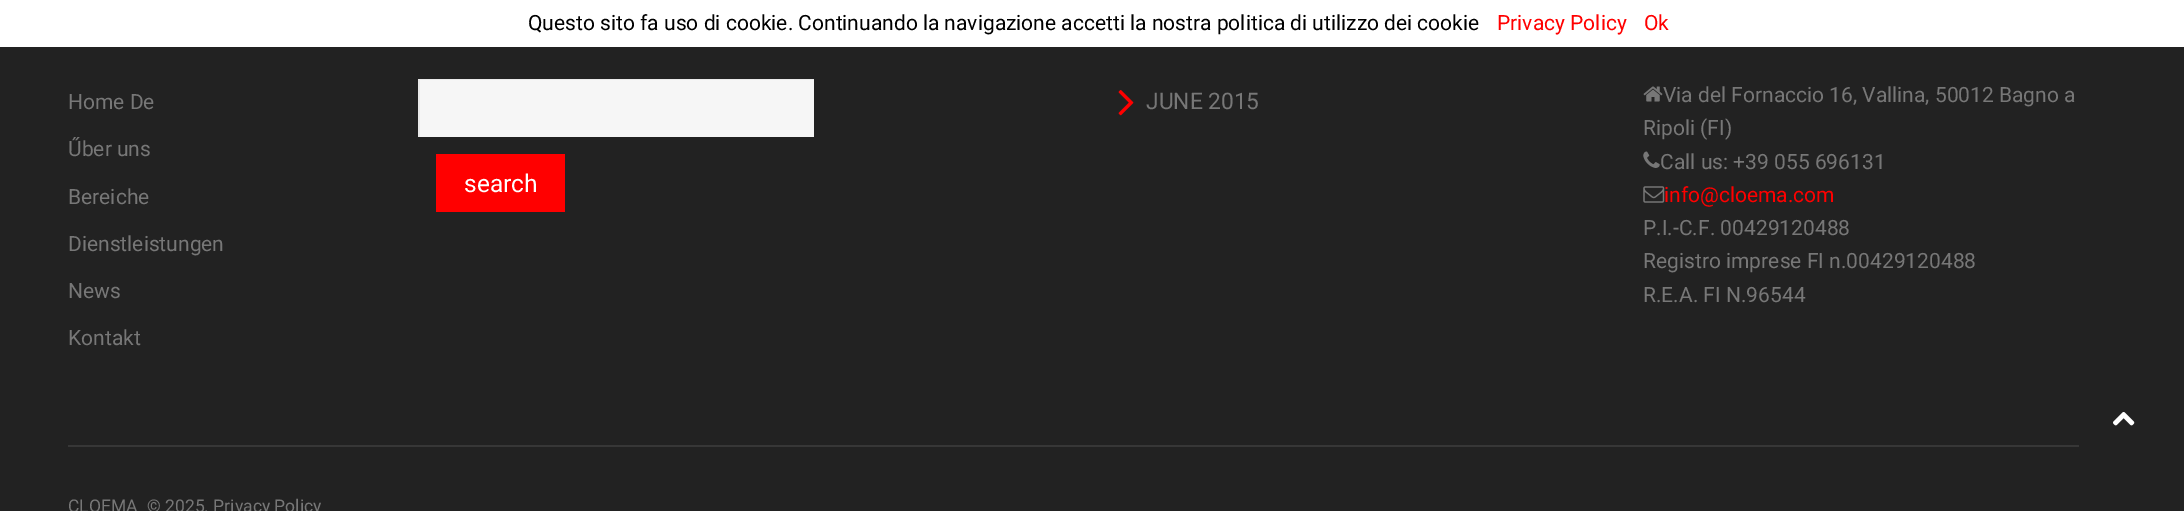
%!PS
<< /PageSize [2184 511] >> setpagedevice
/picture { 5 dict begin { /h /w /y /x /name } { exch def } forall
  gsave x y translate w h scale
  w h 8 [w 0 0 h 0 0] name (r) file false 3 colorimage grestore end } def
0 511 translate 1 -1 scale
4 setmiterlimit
0.133 setgray
0 0 2184 511 rectfill
1 setgray
0 0 2184 47 rectfill
/Roboto-Regular [21 0 0 -21 0 0] selectfont
0 setgray
528 30 moveto (Questo sito fa uso di cookie. Continuando la navigazione accetti la nostra politica di utilizzo dei cookie) show
1 0 0 setrgbcolor
1497 30 moveto (Privacy Policy) show
1644 30 moveto (Ok) show
0.467 setgray
68 109 moveto (Home De) show
68 156 moveto (Űber uns) show
68 204 moveto (Bereiche) show
68 251 moveto (Dienstleistungen) show
68 298 moveto (News) show
68 345 moveto (Kontakt) show
0.965 setgray
420 80 394 57 rectfill
gsave
418 79 396 58 rectclip
0.914 setgray
newpath 245 -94 moveto 987 -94 lineto 987 310 lineto 245 310 lineto closepath 420 80 moveto 816 80 lineto 816 138 lineto 420 138 lineto closepath eofill
grestore
1 0 0 setrgbcolor
436 154 129 58 rectfill
/Roboto-Regular [24.5 0 0 -24.5 0 0] selectfont
1 setgray
464 192 moveto (search) show
(img1.rgb) 1118 90 16 26 picture
/Roboto-Regular [22.75 0 0 -22.75 0 0] selectfont
0.467 setgray
1146 109 moveto (JUNE 2015) show
(img2.rgb) 1643 86 20 16 picture
/Roboto-Regular [21 0 0 -21 0 0] selectfont
1663 102 moveto (Via del Fornaccio 16, Vallina, 50012 Bagno a) show
1643 135 moveto (Ripoli \(FI\)) show
(img3.rgb) 1643 151 17 17 picture
1660 169 moveto (Call us: +39 055 696131) show
(img4.rgb) 1643 186 22 17 picture
1 0 0 setrgbcolor
1664 202 moveto (info@cloema.com) show
0.467 setgray
1643 235 moveto (P.I.-C.F. 00429120488) show
1643 268 moveto (Registro imprese FI n.00429120488) show
1643 302 moveto (R.E.A. FI N.96544) show
0.216 setgray
68 445 2011 2 rectfill
/Roboto-Regular [17.5 0 0 -17.5 0 0] selectfont
0.467 setgray
68 512 moveto (CLOEMA) show
147 512 moveto (© 2025. Privacy Policy) show
(img5.rgb) 2113 412 22 14 picture
showpage
